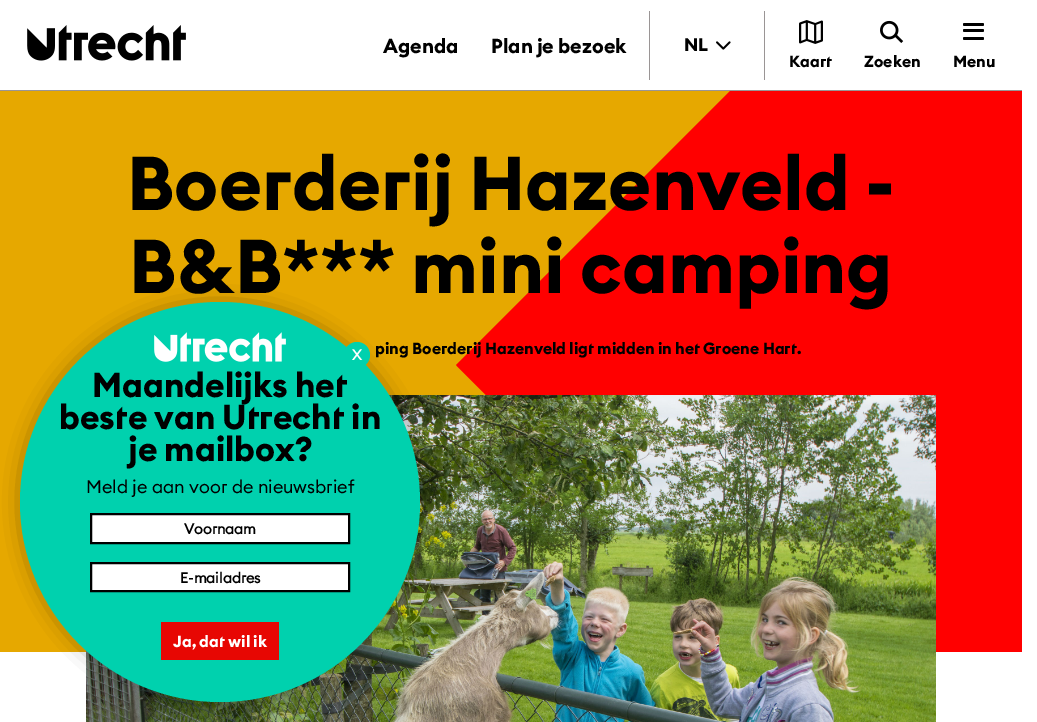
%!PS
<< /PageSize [1037 722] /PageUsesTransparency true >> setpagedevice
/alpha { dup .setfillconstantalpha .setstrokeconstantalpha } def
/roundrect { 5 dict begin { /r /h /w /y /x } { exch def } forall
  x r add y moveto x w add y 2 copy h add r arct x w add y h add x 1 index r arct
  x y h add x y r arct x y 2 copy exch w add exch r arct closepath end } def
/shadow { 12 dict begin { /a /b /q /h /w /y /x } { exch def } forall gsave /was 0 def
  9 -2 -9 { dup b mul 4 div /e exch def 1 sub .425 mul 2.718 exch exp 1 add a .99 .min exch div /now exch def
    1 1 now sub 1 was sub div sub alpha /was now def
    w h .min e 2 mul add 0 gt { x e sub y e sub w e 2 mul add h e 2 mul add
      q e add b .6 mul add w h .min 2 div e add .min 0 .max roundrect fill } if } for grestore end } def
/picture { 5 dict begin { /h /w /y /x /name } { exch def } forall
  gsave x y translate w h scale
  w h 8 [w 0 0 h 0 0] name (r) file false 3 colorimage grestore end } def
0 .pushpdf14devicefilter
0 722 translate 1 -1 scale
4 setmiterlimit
1 setgray
0 0 1037 722 rectfill
0.902 0.659 0 setrgbcolor
0 91 730 561 rectfill
gsave
0 0 1022 652 rectclip
1 0 0 setrgbcolor
newpath 456 365 moveto 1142 -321 lineto 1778 316 lineto 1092 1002 lineto closepath fill
grestore
1 setgray
731 0 291 90 rectfill
0.604 0.584 0.584 setrgbcolor
0 90 1022 1 rectfill
(img1.rgb) 27 25 159 36 picture
/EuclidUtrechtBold-Bold [20 0 0 -20 0 0] selectfont
0 setgray
383 53 moveto (Agenda) show
491 53 moveto (Plan je bezoek) show
0.604 0.584 0.584 setrgbcolor
649 11 1 69 rectfill
/EuclidUtrechtBold-Bold [18 0 0 -18 0 0] selectfont
0 setgray
684 51 moveto (NL) show
(img2.rgb) 716 41 15 9 picture
0.604 0.584 0.584 setrgbcolor
764 11 1 69 rectfill
(img3.rgb) 799 20 24 24 picture
/EuclidUtrechtBold-Bold [16 0 0 -16 0 0] selectfont
0 setgray
789 67 moveto (Kaart) show
(img4.rgb) 880 20 24 23 picture
864 67 moveto (Zoeken) show
963 23 21 3 1.5 roundrect fill
963 29 21 3 1.5 roundrect fill
963 37 21 3 1.5 roundrect fill
953 67 moveto (Menu) show
/EuclidUtrechtBold-Bold [75 0 0 -75 0 0] selectfont
127 210 moveto (Boerderij Hazenveld -) show
129 293 moveto (B&B*** mini camping) show
/EuclidUtrechtBold-Bold [16 0 0 -16 0 0] selectfont
375 354 moveto (ping Boerderij Hazenveld ligt midden in het Groene Hart.) show
(img5.rgb) 86 395 850 327 picture
30 312 380 380 190 12.5 0.75 shadow
0 0.82 0.682 setrgbcolor
newpath 220 502 200 0 360 arc closepath fill
(img6.rgb) 154 332 132 30 picture
newpath 357 355 13 0 360 arc closepath fill
/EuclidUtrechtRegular-Bold [14.5 0 0 -14.5 0 0] selectfont
1 setgray
352 360 moveto (X) show
/EuclidUtrechtBold-Bold [34 0 0 -34 0 0] selectfont
0 setgray
92 397 moveto (Maandelijks het) show
59 429 moveto (beste van Utrecht in) show
128 461 moveto (je mailbox?) show
/EuclidUtrechtRegular-Regular [18 0 0 -18 0 0] selectfont
86 493 moveto (Meld je aan voor de nieuwsbrief) show
1 setgray
newpath 91 514 moveto 349 514 lineto 349 543 lineto 91 543 lineto closepath gsave fill grestore
0 setgray
2 setlinewidth
stroke
/EuclidUtrechtRegular-Bold [14.5 0 0 -14.5 0 0] selectfont
184 534 moveto (Voornaam) show
1 setgray
newpath 91 563 moveto 349 563 lineto 349 591 lineto 91 591 lineto closepath gsave fill grestore
0 setgray
stroke
180 583 moveto (E-mailadres) show
0.906 0.027 0.012 setrgbcolor
161 622 118 38 rectfill
/EuclidUtrechtBold-Bold [16 0 0 -16 0 0] selectfont
1 setgray
173 647 moveto (Ja, dat wil ik) show
.poppdf14devicefilter showpage
